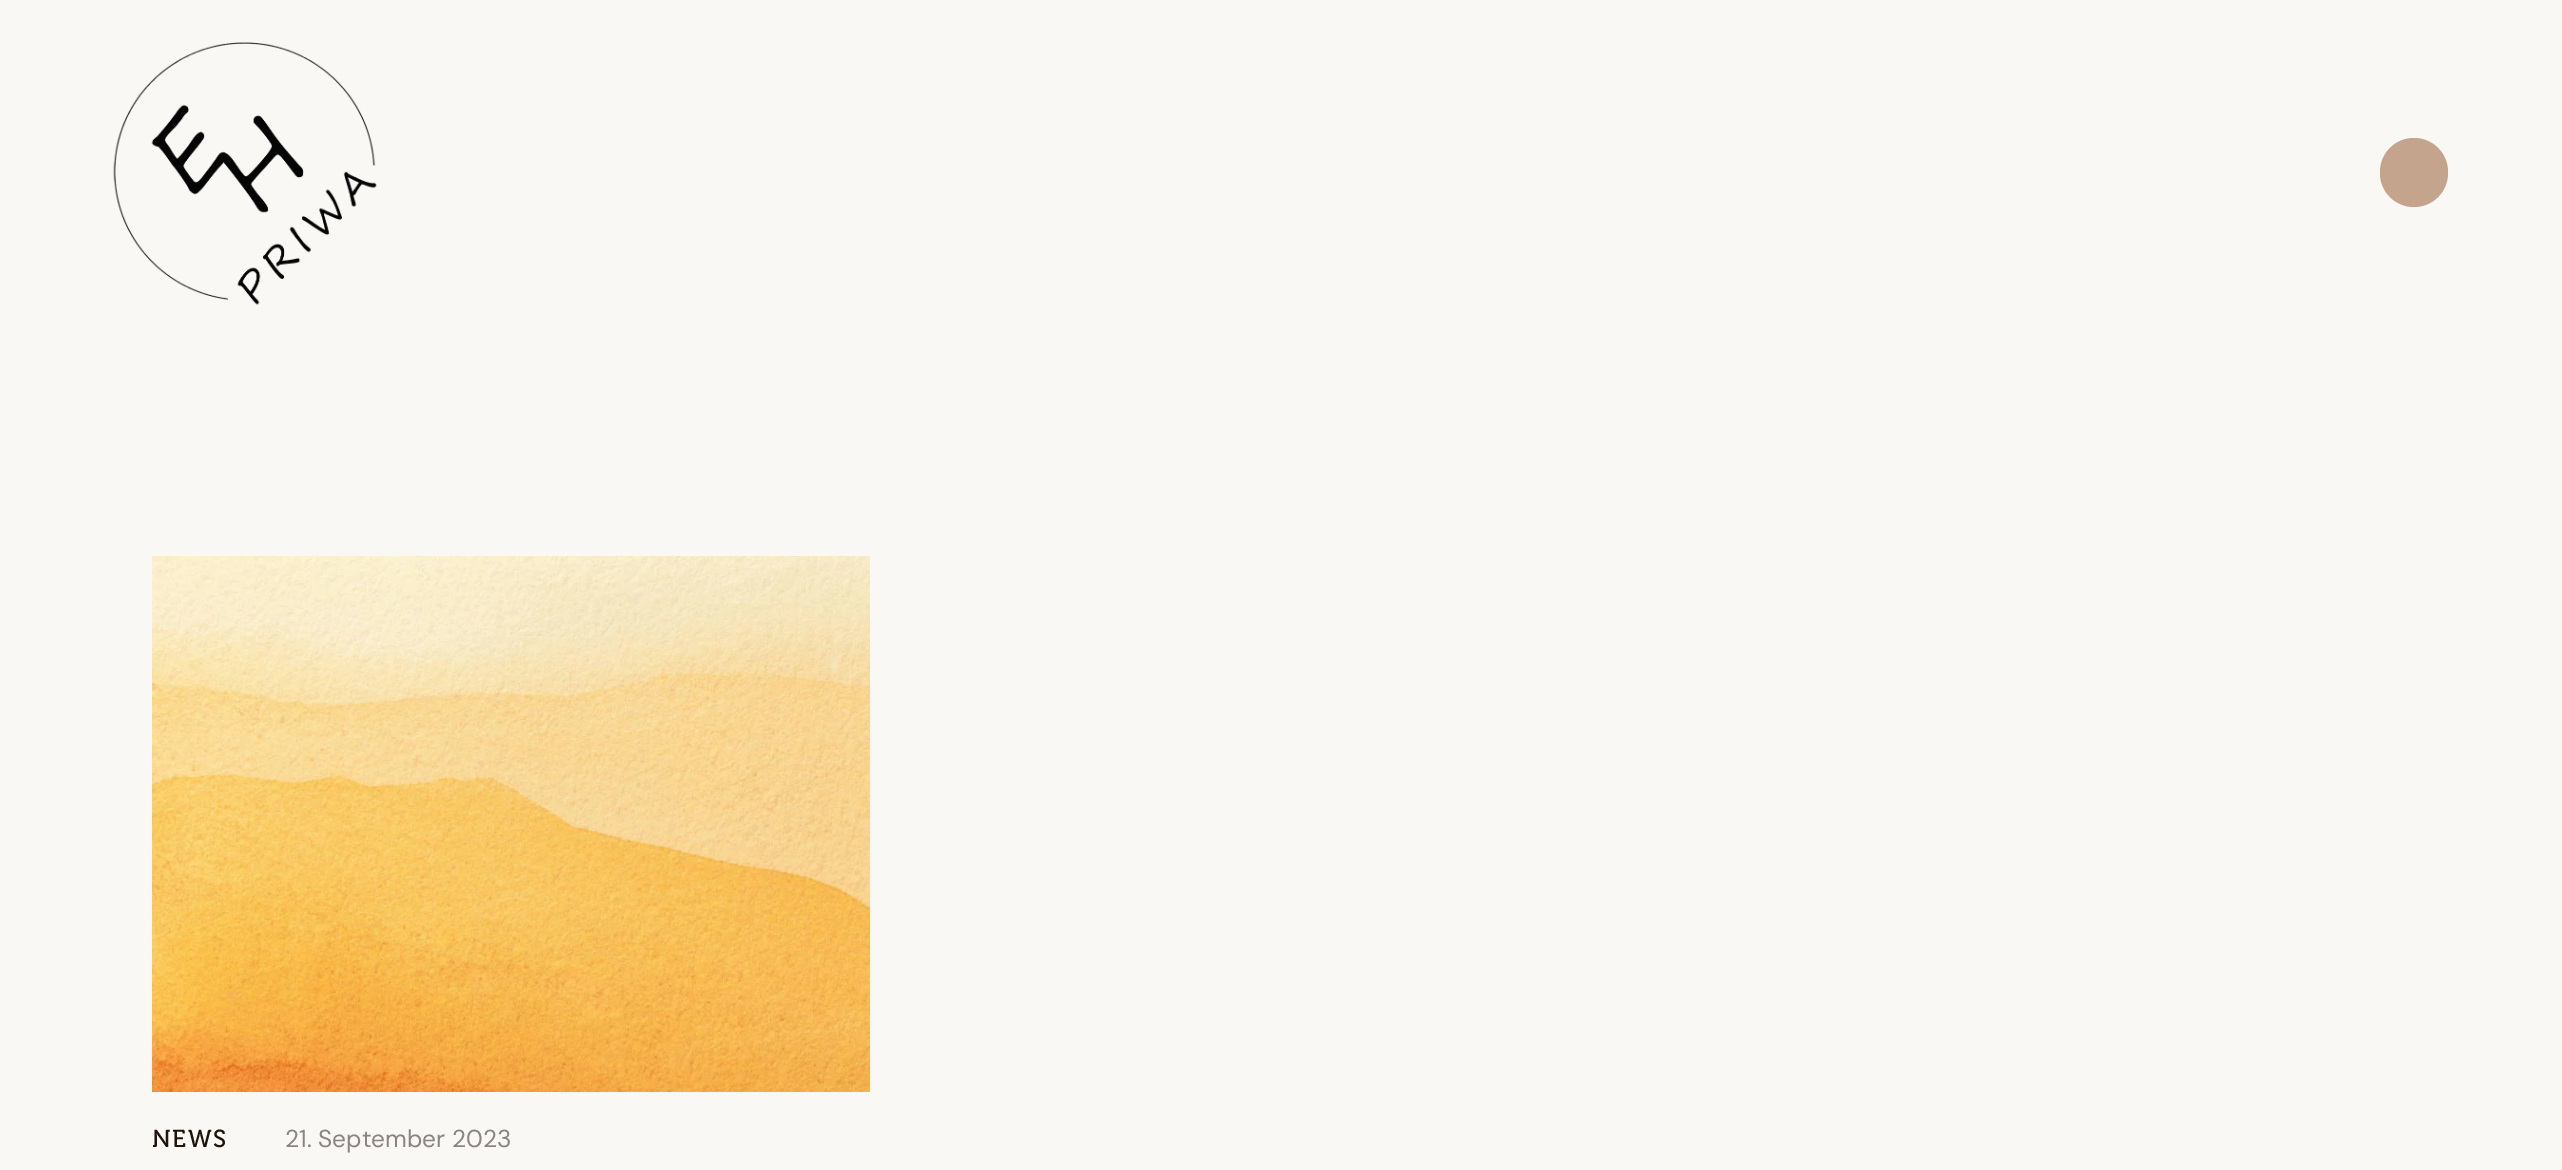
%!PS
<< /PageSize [2562 1170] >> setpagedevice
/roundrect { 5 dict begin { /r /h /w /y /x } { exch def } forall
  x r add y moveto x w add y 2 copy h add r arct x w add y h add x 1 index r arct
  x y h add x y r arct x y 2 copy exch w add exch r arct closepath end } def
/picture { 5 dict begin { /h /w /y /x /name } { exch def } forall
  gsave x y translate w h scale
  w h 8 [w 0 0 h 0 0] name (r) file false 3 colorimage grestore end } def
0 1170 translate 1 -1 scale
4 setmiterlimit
0.98 0.973 0.957 setrgbcolor
0 0 2562 1170 rectfill
(img1.rgb) 113 42 264 263 picture
0.773 0.643 0.557 setrgbcolor
2380 138 68 69 34 roundrect fill
(img2.rgb) 152 556 718 536 picture
/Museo-Regular [24.5 0 0 -24.5 0 0] selectfont
0.122 0.078 0.043 setrgbcolor
152 1147 moveto 1.5 0 (NEWS) ashow
/DMSans-Regular [24.5 0 0 -24.5 0 0] selectfont
0.537 0.514 0.506 setrgbcolor
285 1147 moveto (21. September 2023) show
showpage
